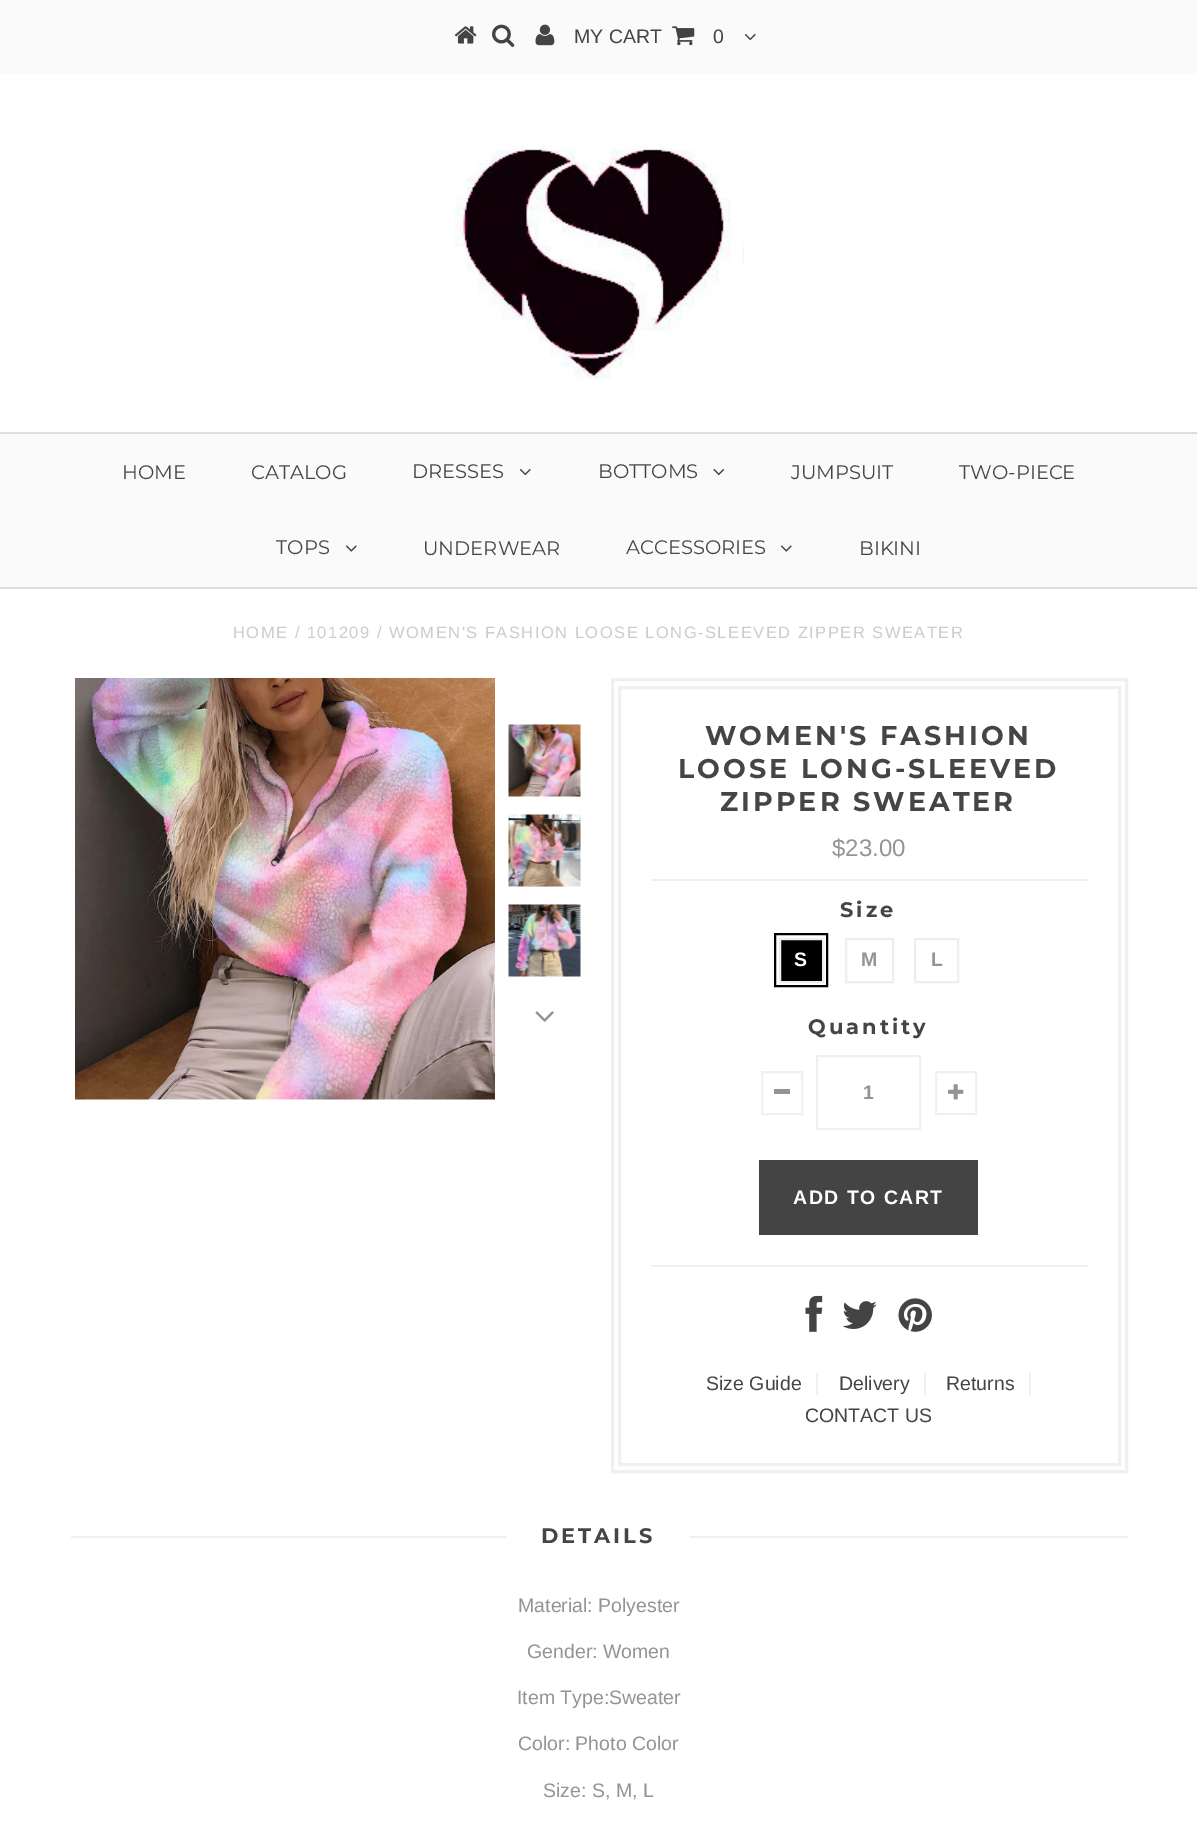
%!PS
<< /PageSize [1197 1822] >> setpagedevice
/picture { 5 dict begin { /h /w /y /x /name } { exch def } forall
  gsave x y translate w h scale
  w h 8 [w 0 0 h 0 0] name (r) file false 3 colorimage grestore end } def
0 1822 translate 1 -1 scale
4 setmiterlimit
1 setgray
0 0 1197 1822 rectfill
0.98 setgray
0 0 1197 74 rectfill
(img1.rgb) 454 26 23 18 picture
(img2.rgb) 492 24 23 23 picture
(img3.rgb) 535 24 20 22 picture
/LiberationSans-Regular [19.5 0 0 -19.5 0 0] selectfont
0.271 setgray
574 43 moveto (MY CART) show
(img4.rgb) 672 26 23 20 picture
713 43 moveto (0) show
(img5.rgb) 744 33 12 8 picture
(img6.rgb) 454 145 290 235 picture
0.98 setgray
0 434 1197 153 rectfill
0.867 setgray
0 432 1197 2 rectfill
0 587 1197 2 rectfill
/Montserrat-Regular [19.5 0 0 -19.5 0 0] selectfont
0.271 setgray
122 479 moveto (HOME) show
251 479 moveto (CATALOG) show
412 478 moveto (DRESSES) show
(img7.rgb) 519 468 12 8 picture
598 478 moveto (BOTTOMS) show
(img8.rgb) 713 468 12 8 picture
791 479 moveto (JUMPSUIT) show
959 479 moveto (TWO-PIECE) show
276 554 moveto (TOPS) show
(img9.rgb) 345 545 12 7 picture
423 555 moveto (UNDERWEAR) show
626 554 moveto (ACCESSORIES) show
(img9.rgb) 780 545 12 7 picture
859 555 moveto (BIKINI) show
/LiberationSans-Regular [16.5 0 0 -16.5 0 0] selectfont
0.8 setgray
233 638 moveto 1.5 0 (HOME / 101209 / WOMEN'S FASHION LOOSE LONG-SLEEVED ZIPPER SWEATER) ashow
(img10.rgb) 75 678 420 422 picture
(img11.rgb) 508 724 73 73 picture
(img12.rgb) 508 814 73 73 picture
(img13.rgb) 508 904 73 73 picture
(img14.rgb) 535 1011 19 11 picture
0.941 setgray
3 setlinewidth
612.5 679.5 514 792 rectstroke
619.5 687.5 500 777 rectstroke
/Montserrat-Bold [27 0 0 -27 0 0] selectfont
0.271 setgray
705 745 moveto 3 0 (WOMEN'S FASHION) ashow
678 778 moveto 3 0 (LOOSE LONG-SLEEVED) ashow
720 811 moveto 3 0 (ZIPPER SWEATER) ashow
/LiberationSans-Regular [24 0 0 -24 0 0] selectfont
0.58 setgray
832 856 moveto ($23.00) show
0.941 setgray
651 879 437 2 rectfill
651 1265 437 2 rectfill
/Montserrat-Bold [21 0 0 -21 0 0] selectfont
0.271 setgray
840 917 moveto 3 0 (Size) ashow
0 setgray
newpath 780 939 moveto 823 939 lineto 823 982 lineto 780 982 lineto closepath gsave fill grestore
0.933 setgray
2 setlinewidth
stroke
0 setgray
775 934 52 52 rectstroke
/LiberationSans-Bold [19.5 0 0 -19.5 0 0] selectfont
1 setgray
794 966 moveto (S) show
0.933 setgray
846 939 47 43 rectstroke
0.58 setgray
861 966 moveto (M) show
0.933 setgray
915 939 43 43 rectstroke
0.58 setgray
931 966 moveto (L) show
/Montserrat-Bold [21 0 0 -21 0 0] selectfont
0.271 setgray
808 1034 moveto 3 0 (Quantity) ashow
0.941 setgray
762 1072 40 42 rectstroke
0.58 setgray
774 1089 16 5 rectfill
0.941 setgray
817 1056 103 73 rectstroke
/LiberationSans-Bold [19.5 0 0 -19.5 0 0] selectfont
0.58 setgray
863 1099 moveto (1) show
0.941 setgray
936 1072 40 42 rectstroke
(img15.rgb) 948 1084 16 16 picture
0.267 setgray
759 1160 219 75 rectfill
1 setgray
793 1204 moveto 1.5 0 (ADD TO CART) ashow
(img16.rgb) 805 1295 18 37 picture
(img17.rgb) 842 1301 35 28 picture
(img18.rgb) 898 1298 34 34 picture
/LiberationSans-Regular [19.5 0 0 -19.5 0 0] selectfont
0.271 setgray
706 1390 moveto (Size Guide) show
0.941 setgray
816 1373 2 22 rectfill
0.271 setgray
839 1390 moveto (Delivery) show
0.941 setgray
924 1373 2 22 rectfill
0.271 setgray
946 1390 moveto (Returns) show
0.941 setgray
1029 1373 2 22 rectfill
0.271 setgray
805 1422 moveto (CONTACT US) show
0.941 setgray
71 1536 1057 2 rectfill
1 setgray
507 1536 183 2 rectfill
/Montserrat-Bold [21 0 0 -21 0 0] selectfont
0.271 setgray
541 1543 moveto 3 0 (DETAILS) ashow
/LiberationSans-Regular [19.5 0 0 -19.5 0 0] selectfont
0.58 setgray
518 1612 moveto (Material: Polyester) show
527 1658 moveto (Gender: Women) show
517 1704 moveto (Item Type:Sweater) show
518 1750 moveto (Color: Photo Color) show
543 1797 moveto (Size: S, M, L) show
showpage
